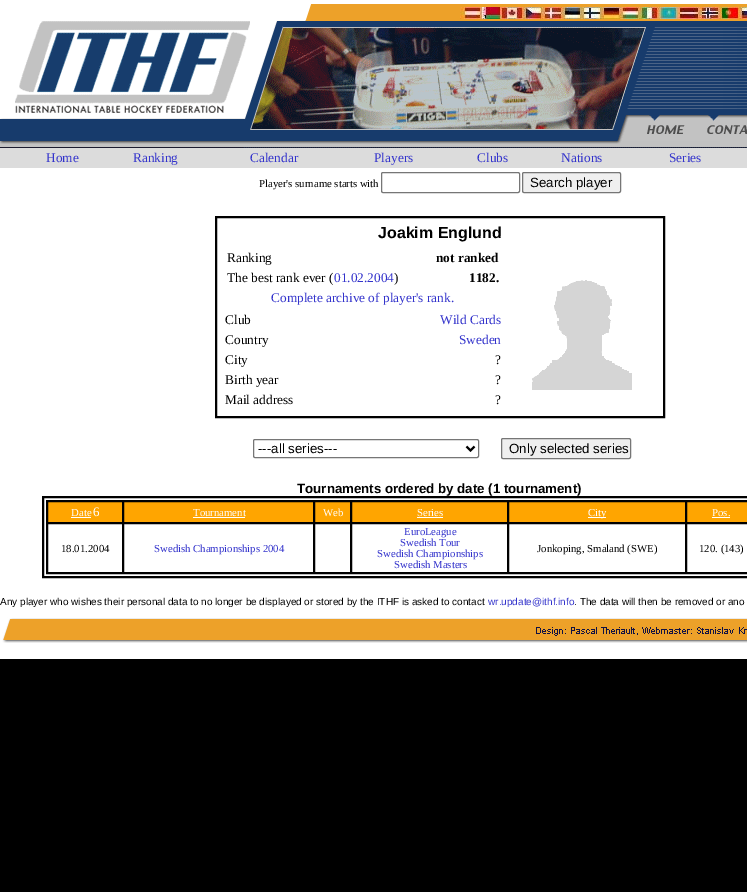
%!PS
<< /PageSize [747 892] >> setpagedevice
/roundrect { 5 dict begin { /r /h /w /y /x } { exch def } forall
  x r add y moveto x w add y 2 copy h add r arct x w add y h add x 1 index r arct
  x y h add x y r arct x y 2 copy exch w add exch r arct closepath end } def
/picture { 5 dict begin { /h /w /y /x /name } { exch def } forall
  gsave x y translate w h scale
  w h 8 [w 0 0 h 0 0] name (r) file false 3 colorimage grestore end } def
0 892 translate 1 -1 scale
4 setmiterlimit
0 setgray
0 0 747 892 rectfill
1 setgray
0 0 747 659 rectfill
(img1.rgb) 276 4 471 17 picture
(img2.rgb) 460 7 287 12 picture
(img3.rgb) 0 21 747 127 picture
(img4.rgb) 15 21 235 92 picture
(img5.rgb) 250 26 396 104 picture
(img6.rgb) 647 115 38 19 picture
(img7.rgb) 707 115 40 19 picture
0.863 setgray
0 148 747 20 rectfill
/LiberationSerif-Regular [13.3 0 0 -13.3 0 0] selectfont
0.2 0.2 0.8 setrgbcolor
46 162 moveto (Home) show
133 162 moveto (Ranking) show
250 162 moveto (Calendar) show
374 162 moveto (Players) show
477 162 moveto (Clubs) show
561 162 moveto (Nations) show
669 162 moveto (Series) show
/LiberationSerif-Regular [10.75 0 0 -10.75 0 0] selectfont
0 setgray
259 187 moveto (Player's surname starts with) show
0.463 setgray
381.5 172.5 138 20 1.5 roundrect stroke
0.937 setgray
522.5 172.5 98 20 1.5 roundrect gsave fill grestore
0.463 setgray
stroke
/LiberationSans-Regular [13.3 0 0 -13.3 0 0] selectfont
0 setgray
530 187 moveto (Search player) show
215.5 216.5 449 201 rectstroke
216.5 217.5 447 199 rectstroke
/LiberationSans-Bold [16 0 0 -16 0 0] selectfont
378 238 moveto (Joakim Englund) show
/LiberationSerif-Regular [13.3 0 0 -13.3 0 0] selectfont
227 262 moveto (Ranking) show
/LiberationSerif-Bold [13.3 0 0 -13.3 0 0] selectfont
436 262 moveto (not ranked) show
/LiberationSerif-Regular [13.3 0 0 -13.3 0 0] selectfont
227 282 moveto (The best rank ever \() show
0.2 0.2 0.8 setrgbcolor
334 282 moveto (01.02.2004) show
0 setgray
394 282 moveto (\)) show
/LiberationSerif-Bold [13.3 0 0 -13.3 0 0] selectfont
469 282 moveto (1182.) show
/LiberationSerif-Regular [13.3 0 0 -13.3 0 0] selectfont
0.2 0.2 0.8 setrgbcolor
271 302 moveto (Complete archive of player's rank.) show
0 setgray
225 324 moveto (Club) show
0.2 0.2 0.8 setrgbcolor
440 324 moveto (Wild Cards) show
0 setgray
225 344 moveto (Country) show
0.2 0.2 0.8 setrgbcolor
459 344 moveto (Sweden) show
0 setgray
225 364 moveto (City) show
495 364 moveto (?) show
225 384 moveto (Birth year) show
495 384 moveto (?) show
225 404 moveto (Mail address) show
495 404 moveto (?) show
(img8.rgb) 532 280 100 110 picture
0.463 setgray
253.5 439.5 225 18 1.5 roundrect stroke
0 setgray
2 setlinewidth
newpath 466.5 446.5 moveto 470.5 450.5 lineto 474.5 446.5 lineto stroke
/LiberationSans-Regular [13.3 0 0 -13.3 0 0] selectfont
258 453 moveto (---all series---) show
0.937 setgray
501.5 438.5 129 20 1.5 roundrect gsave fill grestore
0.463 setgray
1 setlinewidth
stroke
0 setgray
509 453 moveto (Only selected series) show
/LiberationSans-Bold [13.3 0 0 -13.3 0 0] selectfont
297 493 moveto (Tournaments ordered by date \(1 tournament\)) show
42.5 496.5 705 81 rectstroke
43.5 497.5 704 79 rectstroke
46.5 500.5 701 73 rectstroke
1 0.647 0 setrgbcolor
newpath 47.5 501.5 moveto 122.5 501.5 lineto 122.5 522.5 lineto 47.5 522.5 lineto closepath gsave fill grestore
0 setgray
stroke
/LiberationSerif-Regular [10.75 0 0 -10.75 0 0] selectfont
1 setgray
71 516 moveto (Date) show
71 517 20 1 rectfill
/LiberationSerif-Regular [13 0 0 -13 0 0] selectfont
93 516 moveto (6) show
1 0.647 0 setrgbcolor
newpath 123.5 501.5 moveto 313.5 501.5 lineto 313.5 522.5 lineto 123.5 522.5 lineto closepath gsave fill grestore
0 setgray
stroke
/LiberationSerif-Regular [10.75 0 0 -10.75 0 0] selectfont
1 setgray
193 516 moveto (Tournament) show
193 517 52 1 rectfill
1 0.647 0 setrgbcolor
newpath 314.5 501.5 moveto 350.5 501.5 lineto 350.5 522.5 lineto 314.5 522.5 lineto closepath gsave fill grestore
0 setgray
stroke
1 setgray
323 516 moveto (Web) show
1 0.647 0 setrgbcolor
newpath 351.5 501.5 moveto 507.5 501.5 lineto 507.5 522.5 lineto 351.5 522.5 lineto closepath gsave fill grestore
0 setgray
stroke
1 setgray
417 516 moveto (Series) show
417 517 26 1 rectfill
1 0.647 0 setrgbcolor
newpath 508.5 501.5 moveto 685.5 501.5 lineto 685.5 522.5 lineto 508.5 522.5 lineto closepath gsave fill grestore
0 setgray
stroke
1 setgray
588 517 18 1 rectfill
588 516 moveto (City) show
1 0.647 0 setrgbcolor
newpath 686.5 501.5 moveto 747.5 501.5 lineto 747.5 522.5 lineto 686.5 522.5 lineto closepath gsave fill grestore
0 setgray
stroke
1 setgray
712 516 moveto (Pos.) show
712 517 18 1 rectfill
0 setgray
47.5 523.5 75 49 rectstroke
61 552 moveto (18.01.2004) show
123.5 523.5 190 49 rectstroke
0.2 0.2 0.8 setrgbcolor
154 552 moveto (Swedish Championships 2004) show
0 setgray
314.5 523.5 36 49 rectstroke
351.5 523.5 156 49 rectstroke
0.2 0.2 0.8 setrgbcolor
404 535 moveto (EuroLeague) show
400 546 moveto (Swedish Tour) show
377 557 moveto (Swedish Championships) show
394 568 moveto (Swedish Masters) show
0 setgray
508.5 523.5 177 49 rectstroke
537 552 moveto (Jonkoping, Smaland \(SWE\)) show
686.5 523.5 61 49 rectstroke
699 552 moveto (120. \(143\)) show
/LiberationSans-Regular [10 0 0 -10 0 0] selectfont
0 605 moveto (Any player who wishes their personal data to no longer be displayed or stored by the ITHF is asked to contact) show
0.2 0.2 0.8 setrgbcolor
488 605 moveto (wr.update@ithf.info) show
0 setgray
574 605 moveto (. The data will then be removed or ano) show
(img9.rgb) 2 607 745 36 picture
showpage
